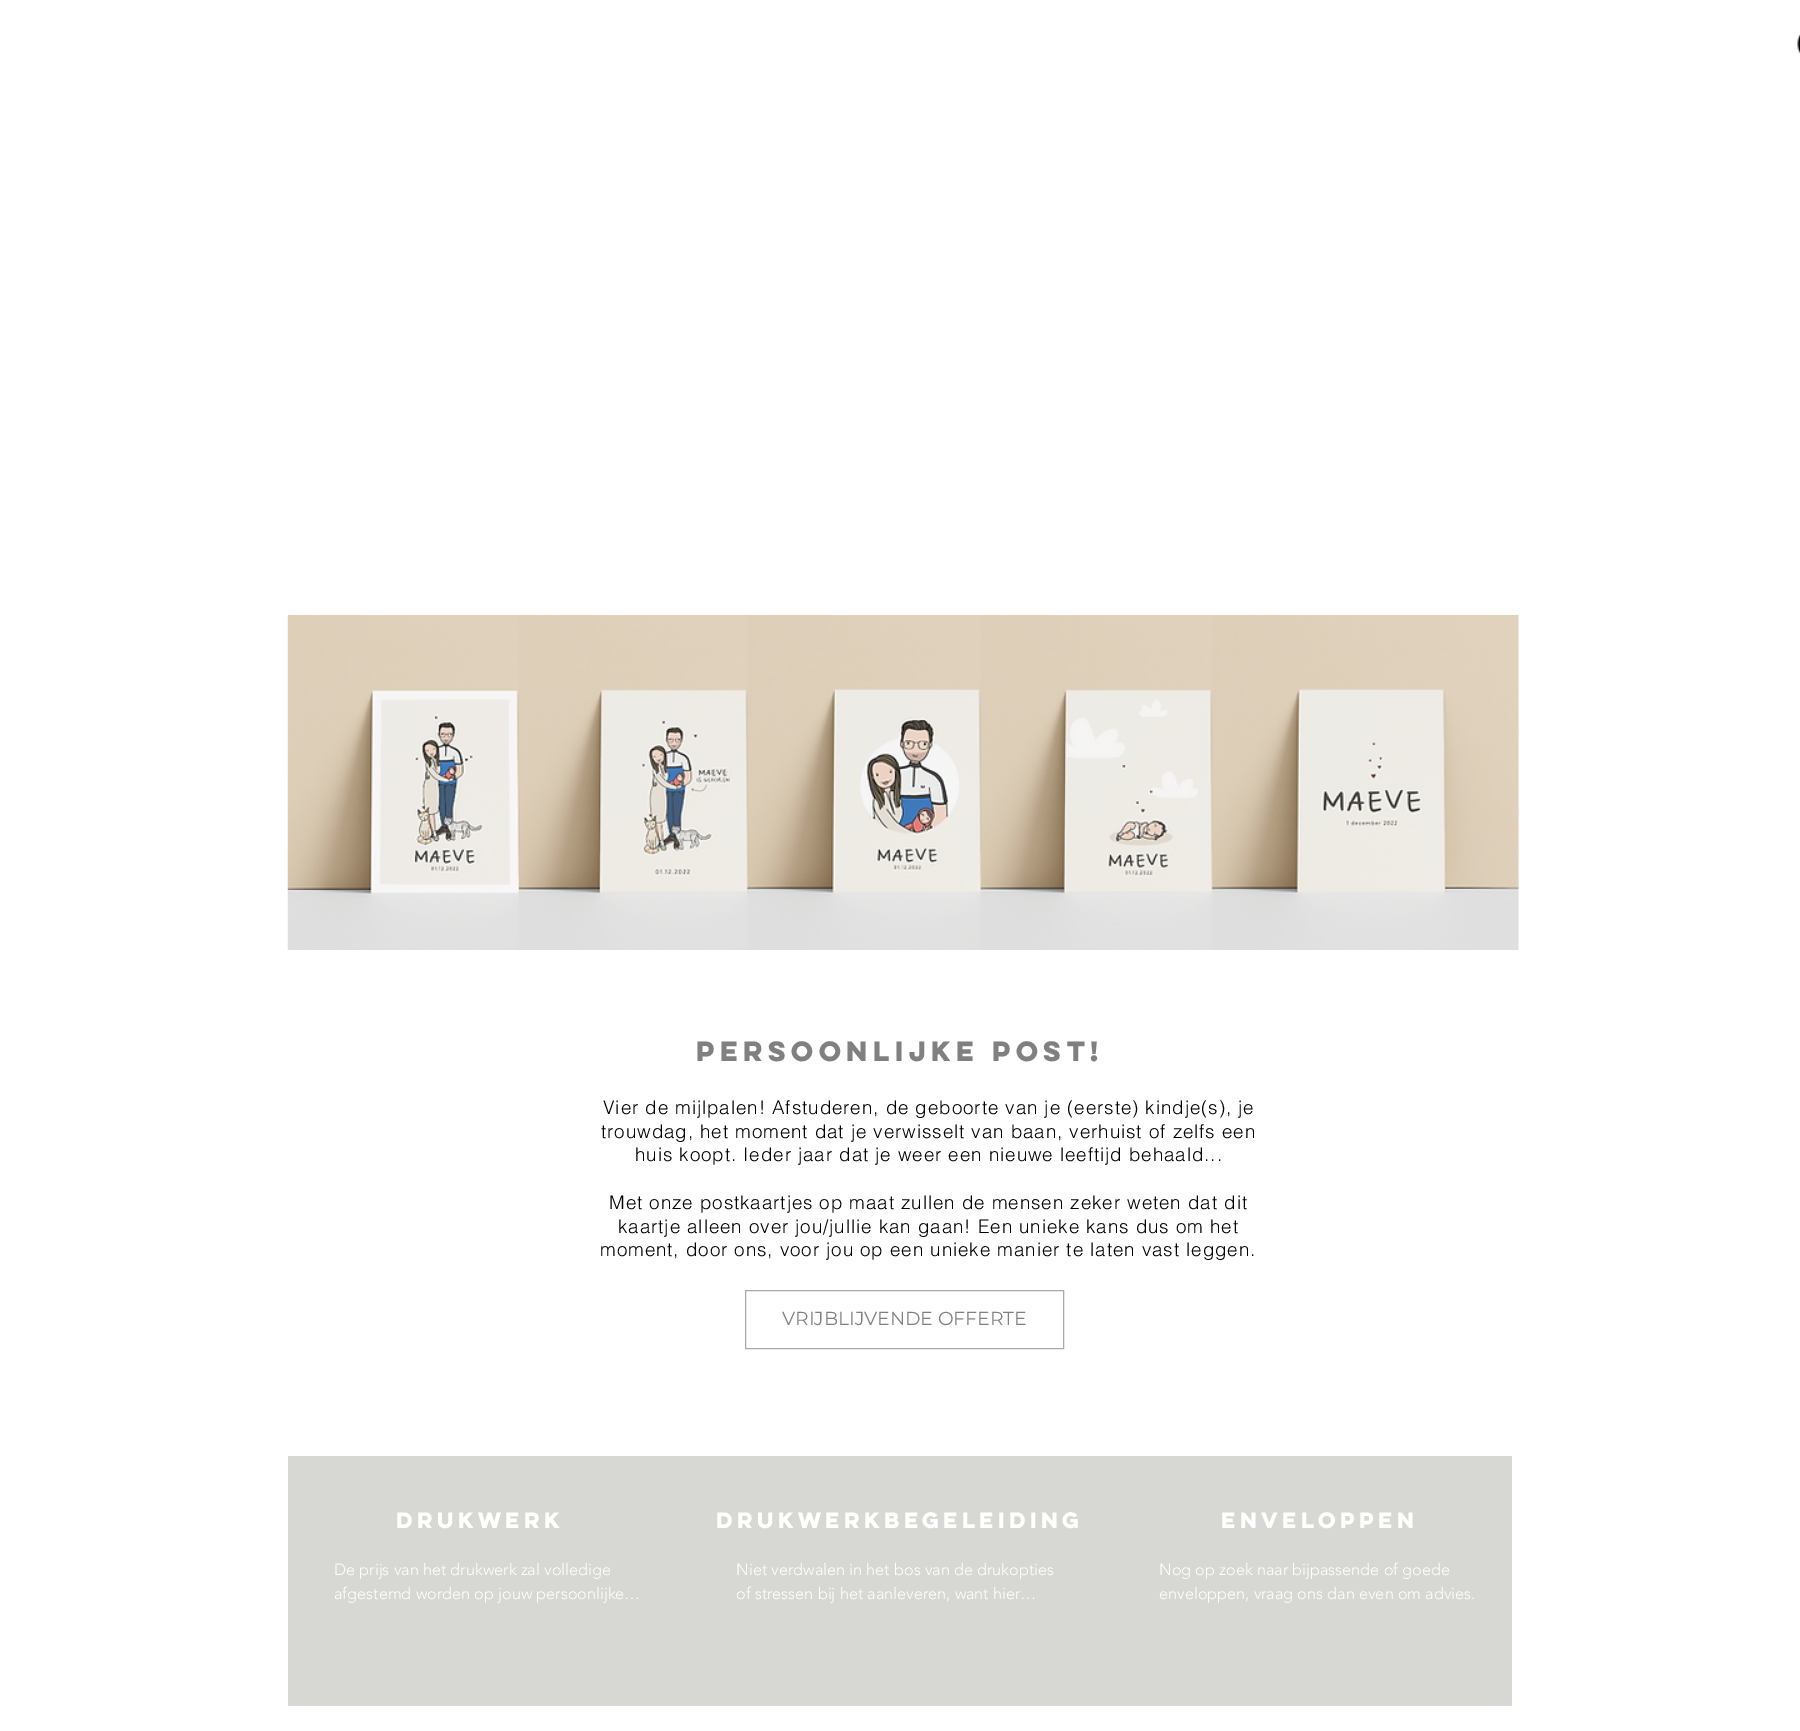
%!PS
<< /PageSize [1800 1731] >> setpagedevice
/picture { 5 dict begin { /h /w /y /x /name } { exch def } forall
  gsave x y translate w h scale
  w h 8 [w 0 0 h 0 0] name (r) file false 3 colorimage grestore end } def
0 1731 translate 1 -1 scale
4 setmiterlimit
1 setgray
0 0 1800 1731 rectfill
(img1.rgb) 1797 34 3 20 picture
(img2.rgb) 287 615 1232 335 picture
/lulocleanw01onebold-Bold [25 0 0 -25 0 0] selectfont
0.502 setgray
696 1061 moveto (PERSOONLIJKE POST!) show
/helvetica-Light [18.75 0 0 -18.75 0 0] selectfont
0 setgray
603 1114 moveto 0.95 0 (Vier de mijlpalen! Afstuderen, de geboorte van je \(eerste\) kindje\(s\), je) ashow
601 1138 moveto 0.95 0 (trouwdag, het moment dat je verwisselt van baan, verhuist of zelfs een) ashow
635 1161 moveto 0.95 0 (huis koopt. Ieder jaar dat je weer een nieuwe leeftijd behaald...) ashow
609 1209 moveto 0.95 0 (Met onze postkaartjes op maat zullen de mensen zeker weten dat dit) ashow
618 1233 moveto 0.95 0 (kaartje alleen over jou/jullie kan gaan! Een unieke kans dus om het) ashow
600 1256 moveto 0.95 0 (moment, door ons, voor jou op een unieke manier te laten vast leggen.) ashow
0.667 setgray
745.5 1290.5 318 58 rectstroke
/Montserrat-Regular [18.75 0 0 -18.75 0 0] selectfont
0.502 setgray
782 1325 moveto (VRIJBLIJVENDE OFFERTE) show
0.843 0.843 0.827 setrgbcolor
288 1456 1224 250 rectfill
/lulocleanw01onebold-Bold [20 0 0 -20 0 0] selectfont
1 setgray
396 1528 moveto (DRUKWERK) show
716 1528 moveto (Drukwerkbegeleiding) show
1221 1528 moveto (ENVELOPPEN) show
/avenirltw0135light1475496-Light [16.25 0 0 -16.25 0 0] selectfont
334 1575 moveto (De prijs van het drukwerk zal volledige) show
334 1599 moveto (afgestemd worden op jouw persoonlijke…) show
736 1575 moveto (Niet verdwalen in het bos van de drukopties) show
736 1599 moveto (of stressen bij het aanleveren, want hier…) show
1159 1575 moveto (Nog op zoek naar bijpassende of goede) show
1159 1599 moveto (enveloppen, vraag ons dan even om advies.) show
showpage
